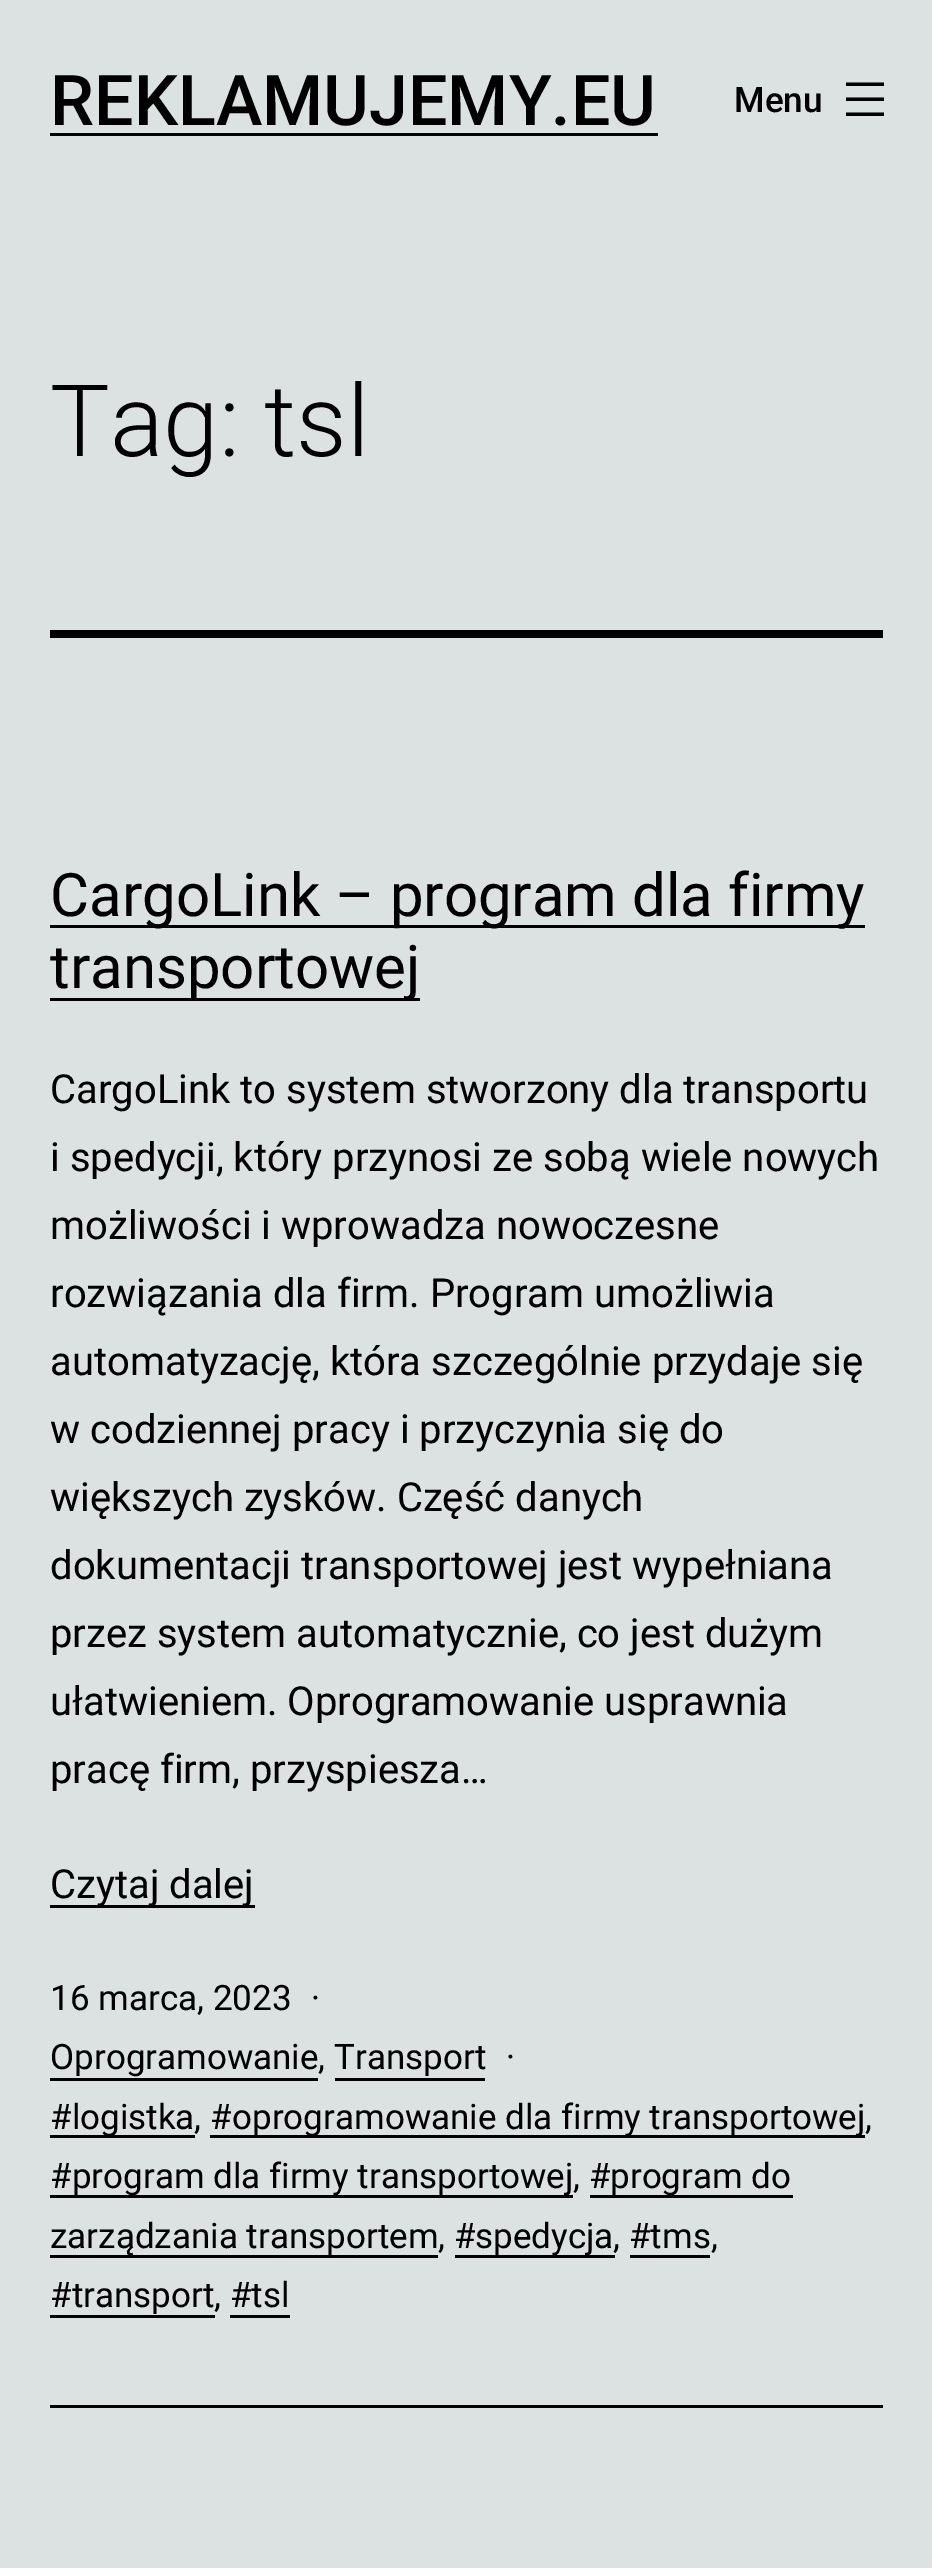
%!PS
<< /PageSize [932 2568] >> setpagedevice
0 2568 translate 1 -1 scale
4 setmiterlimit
0.863 0.886 0.886 setrgbcolor
0 0 932 2568 rectfill
/Roboto-Medium [70 0 0 -70 0 0] selectfont
0 setgray
50 125 moveto (REKLAMUJEMY.EU) show
50 133 608 3 rectfill
/Roboto-Medium [35 0 0 -35 0 0] selectfont
734 112 moveto (Menu) show
newpath 846 82.5 moveto 884 82.5 lineto 884 86 lineto 846 86 lineto closepath 846 97.5 moveto 884 97.5 lineto 884 101 lineto 846 101 lineto closepath 884 112.5 moveto 846 112.5 lineto 846 116 lineto 884 116 lineto closepath eofill
50 630 833 8 rectfill
/Roboto-Light [100 0 0 -100 0 0] selectfont
50 456 moveto (Tag: tsl) show
50 2405 833 3 rectfill
50 925 815 3 rectfill
/Roboto-Regular [60 0 0 -60 0 0] selectfont
50 916 moveto (CargoLink – program dla firmy) show
50 998 370 3 rectfill
50 988 moveto (transportowej) show
/Roboto-Regular [40 0 0 -40 0 0] selectfont
50 1103 moveto (CargoLink to system stworzony dla transportu) show
50 1171 moveto (i spedycji, który przynosi ze sobą wiele nowych) show
50 1239 moveto (możliwości i wprowadza nowoczesne) show
50 1307 moveto (rozwiązania dla firm. Program umożliwia) show
50 1375 moveto (automatyzację, która szczególnie przydaje się) show
50 1443 moveto (w codziennej pracy i przyczynia się do) show
50 1511 moveto (większych zysków. Część danych) show
50 1579 moveto (dokumentacji transportowej jest wypełniana) show
50 1647 moveto (przez system automatycznie, co jest dużym) show
50 1715 moveto (ułatwieniem. Oprogramowanie usprawnia) show
50 1783 moveto (pracę firm, przyspiesza…) show
50 1905 205 3 rectfill
50 1898 moveto (Czytaj dalej) show
/Roboto-Regular [35 0 0 -35 0 0] selectfont
50 2010 moveto (16 marca, 2023) show
311 2010 moveto (·) show
50 2069 moveto (Oprogramowanie, Transport) show
50 2078 268 3 rectfill
506 2069 moveto (·) show
335 2078 150 3 rectfill
50 2135 145 3 rectfill
50 2129 moveto (#logistka, #) show
210 2135 655 3 rectfill
232 2129 moveto (oprogramowanie dla firmy transportowej,) show
50 2195 523 3 rectfill
50 2188 moveto (#program dla firmy transportowej, #) show
590 2195 203 3 rectfill
610 2188 moveto (program do) show
50 2255 388 3 rectfill
50 2248 moveto (zarządzania transportem, #) show
455 2255 160 3 rectfill
475 2248 moveto (spedycja, #tms,) show
630 2255 80 3 rectfill
50 2307 moveto (#transport, #tsl) show
50 2315 165 3 rectfill
230 2315 60 3 rectfill
showpage
